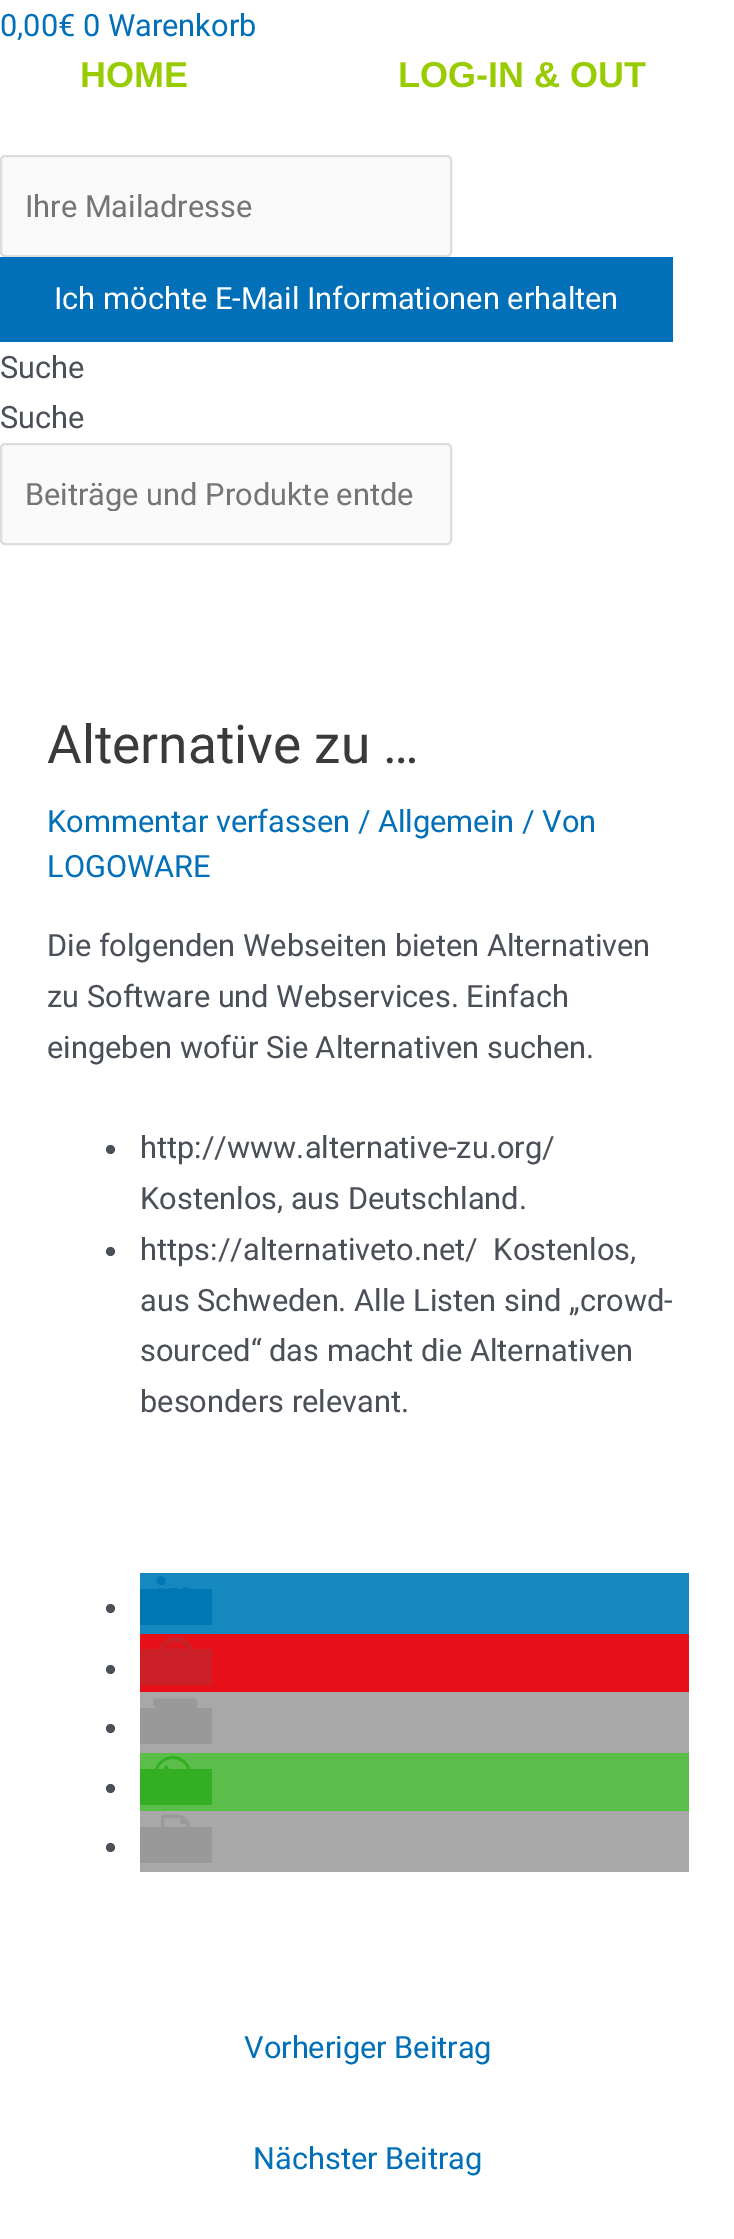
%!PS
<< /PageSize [734 2239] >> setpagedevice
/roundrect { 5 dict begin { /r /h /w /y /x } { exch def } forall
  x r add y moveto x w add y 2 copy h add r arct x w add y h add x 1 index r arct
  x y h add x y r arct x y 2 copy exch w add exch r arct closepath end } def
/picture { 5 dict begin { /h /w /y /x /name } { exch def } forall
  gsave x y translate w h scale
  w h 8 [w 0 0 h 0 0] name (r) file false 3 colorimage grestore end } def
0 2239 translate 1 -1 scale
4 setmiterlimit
1 setgray
0 0 734 2239 rectfill
/Roboto-Regular [30.75 0 0 -30.75 0 0] selectfont
0.004 0.439 0.725 setrgbcolor
0 36 moveto (0,00€ 0 Warenkorb) show
/LiberationSans-Bold [36 0 0 -36 0 0] selectfont
0.6 0.8 0 setrgbcolor
80 87 moveto (HOME) show
398 87 moveto (LOG-IN & OUT) show
0.98 setgray
1 156 450 100 4 roundrect gsave fill grestore
0.867 setgray
2 setlinewidth
stroke
/Roboto-Regular [30.75 0 0 -30.75 0 0] selectfont
0.459 setgray
25 217 moveto (Ihre Mailadresse) show
0.004 0.439 0.725 setrgbcolor
0 257 673 85 rectfill
1 setgray
54 309 moveto (Ich möchte E-Mail Informationen erhalten) show
0.294 0.31 0.345 setrgbcolor
0 378 moveto (Suche) show
0 428 moveto (Suche) show
0.98 setgray
1 444 450 100 4 roundrect gsave fill grestore
0.867 setgray
stroke
gsave
25 475 391 36 rectclip
0.459 setgray
25 505 moveto (Beiträge und Produkte entde) show
grestore
/Roboto-Regular [53.25 0 0 -53.25 0 0] selectfont
0.227 setgray
47 763 moveto (Alternative zu …) show
/Roboto-Regular [30.75 0 0 -30.75 0 0] selectfont
0.004 0.439 0.725 setrgbcolor
47 832 moveto (Kommentar verfassen / Allgemein / Von) show
47 877 moveto (LOGOWARE) show
0.294 0.31 0.345 setrgbcolor
47 956 moveto (Die folgenden Webseiten bieten Alternativen) show
47 1007 moveto (zu Software und Webservices. Einfach) show
47 1058 moveto (eingeben wofür Sie Alternativen suchen.) show
newpath 110.5 1149.5 4.5 0 360 arc closepath fill
140 1158 moveto (http://www.alternative-zu.org/) show
140 1209 moveto (Kostenlos, aus Deutschland.) show
newpath 110.5 1251.5 4.5 0 360 arc closepath fill
140 1260 moveto (https://alternativeto.net/  Kostenlos,) show
140 1311 moveto (aus Schweden. Alle Listen sind „crowd-) show
140 1361 moveto (sourced“ das macht die Alternativen) show
140 1412 moveto (besonders relevant.) show
0.078 0.533 0.749 setrgbcolor
140 1573 549 61 rectfill
(img1.rgb) 156 1576 34 13 picture
0.294 0.31 0.345 setrgbcolor
newpath 110.5 1608.5 4.5 0 360 arc closepath fill
0 0.467 0.71 setrgbcolor
140 1589 72 36 rectfill
0.906 0.059 0.094 setrgbcolor
140 1634 549 58 rectfill
(img2.rgb) 157 1636 37 13 picture
0.294 0.31 0.345 setrgbcolor
newpath 110.5 1669.5 4.5 0 360 arc closepath fill
0.796 0.125 0.153 setrgbcolor
140 1649 72 36 rectfill
0.659 setgray
140 1692 549 61 rectfill
(img3.rgb) 153 1698 45 10 picture
0.294 0.31 0.345 setrgbcolor
newpath 110.5 1728.5 4.5 0 360 arc closepath fill
0.6 setgray
140 1708 72 36 rectfill
0.361 0.745 0.29 setrgbcolor
140 1753 549 58 rectfill
(img4.rgb) 155 1755 36 14 picture
0.294 0.31 0.345 setrgbcolor
newpath 110.5 1788.5 4.5 0 360 arc closepath fill
0.204 0.686 0.137 setrgbcolor
140 1769 72 36 rectfill
0.659 setgray
140 1811 549 61 rectfill
(img5.rgb) 161 1814 29 13 picture
0.294 0.31 0.345 setrgbcolor
newpath 110.5 1847.5 4.5 0 360 arc closepath fill
0.6 setgray
140 1827 72 36 rectfill
0.004 0.439 0.725 setrgbcolor
244 2058 moveto (Vorheriger Beitrag) show
253 2169 moveto (Nächster Beitrag) show
showpage
